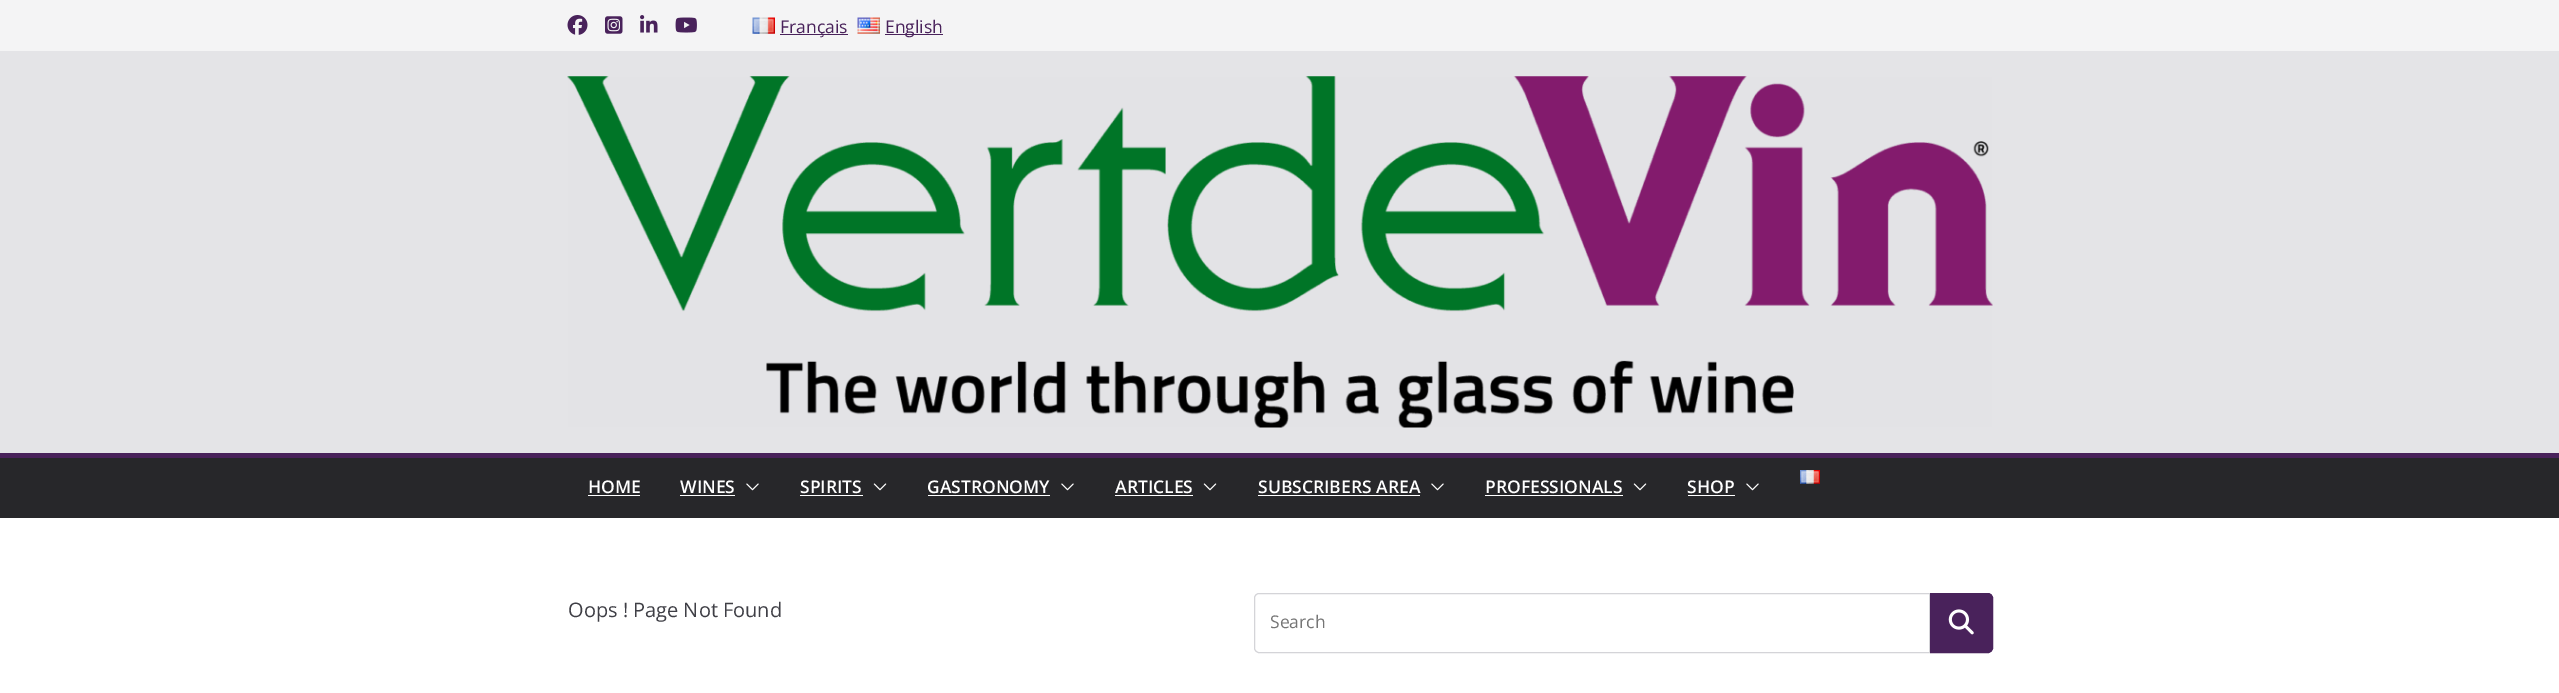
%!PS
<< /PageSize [2559 693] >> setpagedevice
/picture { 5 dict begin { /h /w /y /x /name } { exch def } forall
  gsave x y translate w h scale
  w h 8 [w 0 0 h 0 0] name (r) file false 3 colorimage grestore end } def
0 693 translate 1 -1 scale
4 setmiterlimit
0.894 0.894 0.906 setrgbcolor
0 0 2559 693 rectfill
0.957 0.957 0.961 setrgbcolor
0 0 2559 51 rectfill
(img1.rgb) 567 15 21 20 picture
(img2.rgb) 605 16 18 18 picture
(img3.rgb) 640 15 18 18 picture
(img4.rgb) 675 17 22 16 picture
(img5.rgb) 752 17 23 17 picture
0.286 0.133 0.357 setrgbcolor
780 34 68 1 rectfill
/OpenSans-Regular [17.5 0 0 -17.5 0 0] selectfont
780 33 moveto (Français) show
(img6.rgb) 857 17 23 17 picture
885 34 58 1 rectfill
885 33 moveto (English) show
(img7.rgb) 567 76 1426 352 picture
0.153 0.153 0.165 setrgbcolor
0 458 2559 60 rectfill
0.286 0.133 0.357 setrgbcolor
0 453 2559 5 rectfill
(img8.rgb) 1800 470 20 14 picture
/OpenSans-SemiBold [17.5 0 0 -17.5 0 0] selectfont
1 setgray
588 493 moveto (HOME) show
588 495 52 1 rectfill
680 493 moveto (WINES) show
680 495 55 1 rectfill
(img9.rgb) 746 483 13 8 picture
800 493 moveto (SPIRITS) show
800 495 63 1 rectfill
(img10.rgb) 873 483 14 8 picture
927 493 moveto (GASTRONOMY) show
928 495 122 1 rectfill
(img9.rgb) 1061 483 13 8 picture
1115 493 moveto (ARTICLES) show
1115 495 78 1 rectfill
(img10.rgb) 1203 483 14 8 picture
1258 493 moveto (SUBSCRIBERS AREA) show
1258 495 162 1 rectfill
(img9.rgb) 1431 483 13 8 picture
1485 493 moveto (PROFESSIONALS) show
1485 495 138 1 rectfill
(img10.rgb) 1633 483 14 8 picture
1687 493 moveto (SHOP) show
1688 495 47 1 rectfill
(img9.rgb) 1746 483 13 8 picture
0 518 2559 175 rectfill
/OpenSans-Regular [20 0 0 -20 0 0] selectfont
0.247 0.247 0.275 setrgbcolor
568 617 moveto (Oops ! Page Not Found) show
0.831 0.831 0.847 setrgbcolor
newpath 1259 593.5 moveto 1929.5 593.5 lineto 1929.5 652.5 lineto 1259 652.5 lineto 1256.5 652.5 1254.5 650.5 1254.5 648 curveto 1254.5 598 lineto 1254.5 595.5 1256.5 593.5 1259 593.5 curveto closepath stroke
/OpenSans-Regular [17.5 0 0 -17.5 0 0] selectfont
0.459 setgray
1270 628 moveto (Search) show
0.286 0.133 0.357 setrgbcolor
newpath 1930.5 593.5 moveto 1988 593.5 lineto 1990.5 593.5 1992.5 595.5 1992.5 598 curveto 1992.5 648 lineto 1992.5 650.5 1990.5 652.5 1988 652.5 curveto 1930.5 652.5 lineto closepath gsave fill grestore
stroke
(img11.rgb) 1948 609 26 26 picture
showpage
